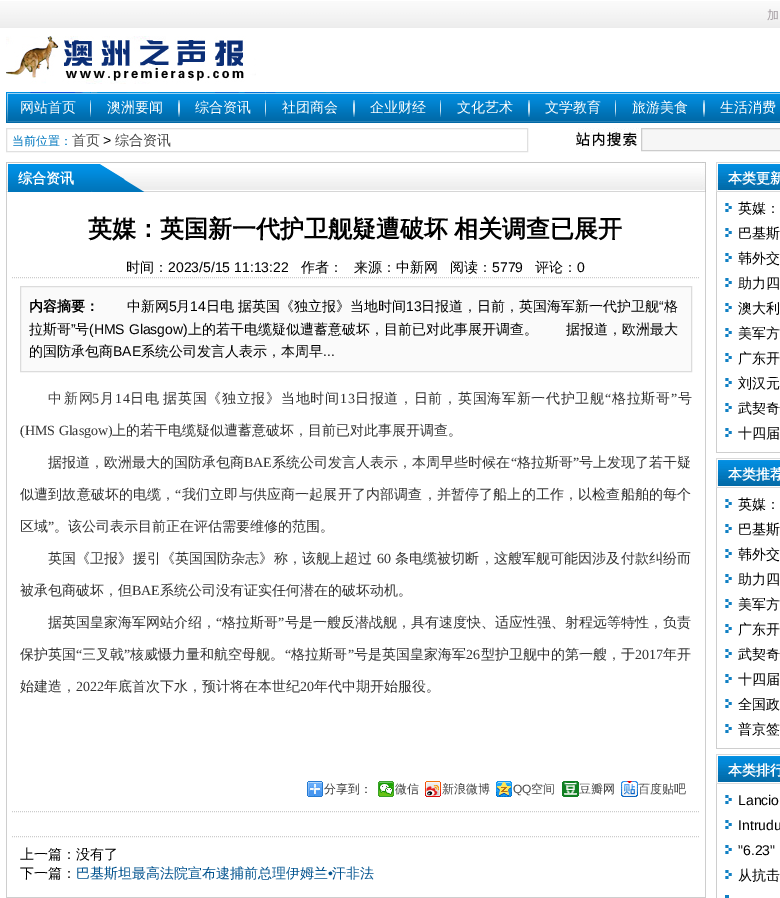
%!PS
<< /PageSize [780 898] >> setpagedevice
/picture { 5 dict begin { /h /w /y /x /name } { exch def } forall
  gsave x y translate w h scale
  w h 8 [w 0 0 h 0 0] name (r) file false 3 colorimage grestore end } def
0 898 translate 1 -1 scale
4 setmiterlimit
1 setgray
0 0 780 898 rectfill
(img1.rgb) 0 1 780 27 picture
/WenQuanYiZenHei-Medium [12 0 0 -12 0 0] selectfont
0.647 0.62 0.639 setrgbcolor
767 19 moveto (加) show
(img2.rgb) 6 36 250 48 picture
(img3.rgb) 6 92 774 31 picture
/WenQuanYiZenHei-Medium [14 0 0 -14 0 0] selectfont
1 setgray
20 112 moveto (网站首页) show
(img4.rgb) 90 92 1 25 picture
107 112 moveto (澳洲要闻) show
(img5.rgb) 178 100 2 17 picture
195 112 moveto (综合资讯) show
(img4.rgb) 265 92 1 25 picture
282 112 moveto (社团商会) show
(img6.rgb) 353 92 2 25 picture
370 112 moveto (企业财经) show
(img7.rgb) 440 100 1 17 picture
457 112 moveto (文化艺术) show
(img5.rgb) 528 100 2 17 picture
545 112 moveto (文学教育) show
(img7.rgb) 615 100 1 17 picture
632 112 moveto (旅游美食) show
(img5.rgb) 703 100 2 17 picture
720 112 moveto (生活消费) show
0.878 setgray
6.5 128.5 521 23 rectstroke
/WenQuanYiZenHei-Medium [12 0 0 -12 0 0] selectfont
0 0.471 0.749 setrgbcolor
12 145 moveto (当前位置：) show
/WenQuanYiZenHei-Medium [14 0 0 -14 0 0] selectfont
0.267 setgray
72 145 moveto (首页) show
/LiberationSans-Regular [14 0 0 -14 0 0] selectfont
0 setgray
103 145 moveto (>) show
/WenQuanYiZenHei-Medium [14 0 0 -14 0 0] selectfont
0.267 setgray
115 145 moveto (综合资讯) show
(img8.rgb) 576 128 63 21 picture
0.965 setgray
newpath 641.5 128.5 moveto 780.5 128.5 lineto 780.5 150.5 lineto 641.5 150.5 lineto closepath gsave fill grestore
0.8 setgray
stroke
(img9.rgb) 6 162 700 30 picture
/WenQuanYiZenHei-Bold [14 0 0 -14 0 0] selectfont
1 setgray
18 183 moveto (综合资讯) show
0.808 setgray
705 192 1 706 rectfill
6 897 700 1 rectfill
6 192 1 706 rectfill
0.8 setgray
[1 1] 0 setdash
newpath 12 277.5 moveto 700 277.5 lineto stroke
/WenQuanYiZenHei-Bold [24 0 0 -24 0 0] selectfont
0 setgray
88 237 moveto -1 0 32 (英媒：英国新一代护卫舰疑遭破坏 相关调查已展开) widthshow
/WenQuanYiZenHei-Medium [14 0 0 -14 0 0] selectfont
126 272 moveto (时间：) show
/LiberationSans-Regular [14 0 0 -14 0 0] selectfont
168 272 moveto (2023/5/15 11:13:22) show
/WenQuanYiZenHei-Medium [14 0 0 -14 0 0] selectfont
301 272 moveto (作者：) show
354 272 moveto (来源：中新网) show
450 272 moveto (阅读：) show
/LiberationSans-Regular [14 0 0 -14 0 0] selectfont
492 272 moveto (5779) show
/WenQuanYiZenHei-Medium [14 0 0 -14 0 0] selectfont
535 272 moveto (评论：) show
/LiberationSans-Regular [14 0 0 -14 0 0] selectfont
577 272 moveto (0) show
0.8 setgray
newpath 12 811.5 moveto 700 811.5 lineto stroke
0.98 setgray
newpath 20.5 286.5 moveto 691.5 286.5 lineto 691.5 371.5 lineto 20.5 371.5 lineto closepath gsave fill grestore
0.863 setgray
[] 0 setdash
stroke
/WenQuanYiZenHei-Bold [14 0 0 -14 0 0] selectfont
0 setgray
29 311 moveto (内容摘要：) show
/WenQuanYiZenHei-Medium [14 0 0 -14 0 0] selectfont
127 311 moveto (中新网) show
/LiberationSans-Regular [14 0 0 -14 0 0] selectfont
169 311 moveto (5) show
/WenQuanYiZenHei-Medium [14 0 0 -14 0 0] selectfont
176 311 moveto (月) show
/LiberationSans-Regular [14 0 0 -14 0 0] selectfont
190 311 moveto (14) show
/WenQuanYiZenHei-Medium [14 0 0 -14 0 0] selectfont
206 311 moveto (日电 据英国《独立报》当地时间) show
/LiberationSans-Regular [14 0 0 -14 0 0] selectfont
406 311 moveto (13) show
/WenQuanYiZenHei-Medium [14 0 0 -14 0 0] selectfont
421 311 moveto (日报道，日前，英国海军新一代护卫舰) show
/LiberationSans-Regular [14 0 0 -14 0 0] selectfont
659 311 moveto (“) show
/WenQuanYiZenHei-Medium [14 0 0 -14 0 0] selectfont
664 311 moveto (格) show
29 334 moveto (拉斯哥) show
/LiberationSans-Regular [14 0 0 -14 0 0] selectfont
71 334 moveto (”) show
/WenQuanYiZenHei-Medium [14 0 0 -14 0 0] selectfont
75 334 moveto (号) show
/LiberationSans-Regular [14 0 0 -14 0 0] selectfont
89 334 moveto (\(HMS Glasgow\)) show
/WenQuanYiZenHei-Medium [14 0 0 -14 0 0] selectfont
188 334 moveto (上的若干电缆疑似遭蓄意破坏，目前已对此事展开调查。) show
566 334 moveto (据报道，欧洲最大) show
29 356 moveto (的国防承包商) show
/LiberationSans-Regular [14 0 0 -14 0 0] selectfont
113 356 moveto (BAE) show
/WenQuanYiZenHei-Medium [14 0 0 -14 0 0] selectfont
141 356 moveto (系统公司发言人表示，本周早) show
/LiberationSans-Regular [14 0 0 -14 0 0] selectfont
323 356 moveto (...) show
/WenQuanYiZenHei-Medium [14 0 0 -14 0 0] selectfont
0.267 setgray
48 403 moveto 1.5 0 (中新网) ashow
/LiberationSerif-Regular [14 0 0 -14 0 0] selectfont
0.2 setgray
92 403 moveto 0.7 0 (5) ashow
/WenQuanYiZenHei-Medium [14 0 0 -14 0 0] selectfont
100 403 moveto 0.7 0 (月) ashow
/LiberationSerif-Regular [14 0 0 -14 0 0] selectfont
115 403 moveto 0.7 0 (14) ashow
/WenQuanYiZenHei-Medium [14 0 0 -14 0 0] selectfont
130 403 moveto -1 0 32 0.7 0 (日电 据英国《独立报》当地时间) awidthshow
/LiberationSerif-Regular [14 0 0 -14 0 0] selectfont
340 403 moveto 0.7 0 (13) ashow
/WenQuanYiZenHei-Medium [14 0 0 -14 0 0] selectfont
355 403 moveto 0.7 0 (日报道，日前，英国海军新一代护卫舰) ashow
/LiberationSerif-Regular [14 0 0 -14 0 0] selectfont
605 403 moveto 0.7 0 (“) ashow
/WenQuanYiZenHei-Medium [14 0 0 -14 0 0] selectfont
612 403 moveto 0.7 0 (格拉斯哥) ashow
/LiberationSerif-Regular [14 0 0 -14 0 0] selectfont
671 403 moveto 0.7 0 (”) ashow
/WenQuanYiZenHei-Medium [14 0 0 -14 0 0] selectfont
678 403 moveto 0.7 0 (号) ashow
/LiberationSerif-Regular [14 0 0 -14 0 0] selectfont
20 435 moveto (\(HMS Glasgow\)) show
/WenQuanYiZenHei-Medium [14 0 0 -14 0 0] selectfont
112 435 moveto (上的若干电缆疑似遭蓄意破坏，目前已对此事展开调查。) show
48 467 moveto (据报道，欧洲最大的国防承包商) show
/LiberationSerif-Regular [14 0 0 -14 0 0] selectfont
244 467 moveto (BAE) show
/WenQuanYiZenHei-Medium [14 0 0 -14 0 0] selectfont
272 467 moveto (系统公司发言人表示，本周早些时候在) show
/LiberationSerif-Regular [14 0 0 -14 0 0] selectfont
511 467 moveto (“) show
/WenQuanYiZenHei-Medium [14 0 0 -14 0 0] selectfont
517 467 moveto (格拉斯哥) show
/LiberationSerif-Regular [14 0 0 -14 0 0] selectfont
573 467 moveto (”) show
/WenQuanYiZenHei-Medium [14 0 0 -14 0 0] selectfont
579 467 moveto (号上发现了若干疑) show
20 499 moveto 0.15 0 (似遭到故意破坏的电缆，) ashow
/LiberationSerif-Regular [14 0 0 -14 0 0] selectfont
175 499 moveto 0.15 0 (“) ashow
/WenQuanYiZenHei-Medium [14 0 0 -14 0 0] selectfont
182 499 moveto 0.15 0 (我们立即与供应商一起展开了内部调查，并暂停了船上的工作，以检查船舶的每个) ashow
20 531 moveto (区域) show
/LiberationSerif-Regular [14 0 0 -14 0 0] selectfont
48 531 moveto (”) show
/WenQuanYiZenHei-Medium [14 0 0 -14 0 0] selectfont
54 531 moveto (。该公司表示目前正在评估需要维修的范围。) show
48 563 moveto 0.1 0 (英国《卫报》援引《英国国防杂志》称，该舰上超过) ashow
/LiberationSerif-Regular [14 0 0 -14 0 0] selectfont
377 563 moveto 0.1 0 (60) ashow
/WenQuanYiZenHei-Medium [14 0 0 -14 0 0] selectfont
395 563 moveto 0.1 0 (条电缆被切断，这艘军舰可能因涉及付款纠纷而) ashow
20 595 moveto (被承包商破坏，但) show
/LiberationSerif-Regular [14 0 0 -14 0 0] selectfont
132 595 moveto (BAE) show
/WenQuanYiZenHei-Medium [14 0 0 -14 0 0] selectfont
160 595 moveto (系统公司没有证实任何潜在的破坏动机。) show
48 627 moveto (据英国皇家海军网站介绍，) show
/LiberationSerif-Regular [14 0 0 -14 0 0] selectfont
216 627 moveto (“) show
/WenQuanYiZenHei-Medium [14 0 0 -14 0 0] selectfont
222 627 moveto (格拉斯哥) show
/LiberationSerif-Regular [14 0 0 -14 0 0] selectfont
278 627 moveto (”) show
/WenQuanYiZenHei-Medium [14 0 0 -14 0 0] selectfont
285 627 moveto (号是一艘反潜战舰，具有速度快、适应性强、射程远等特性，负责) show
20 659 moveto (保护英国) show
/LiberationSerif-Regular [14 0 0 -14 0 0] selectfont
76 659 moveto (“) show
/WenQuanYiZenHei-Medium [14 0 0 -14 0 0] selectfont
82 659 moveto (三叉戟) show
/LiberationSerif-Regular [14 0 0 -14 0 0] selectfont
124 659 moveto (”) show
/WenQuanYiZenHei-Medium [14 0 0 -14 0 0] selectfont
130 659 moveto (核威慑力量和航空母舰。) show
/LiberationSerif-Regular [14 0 0 -14 0 0] selectfont
285 659 moveto (“) show
/WenQuanYiZenHei-Medium [14 0 0 -14 0 0] selectfont
291 659 moveto (格拉斯哥) show
/LiberationSerif-Regular [14 0 0 -14 0 0] selectfont
348 659 moveto (”) show
/WenQuanYiZenHei-Medium [14 0 0 -14 0 0] selectfont
354 659 moveto (号是英国皇家海军) show
/LiberationSerif-Regular [14 0 0 -14 0 0] selectfont
466 659 moveto (26) show
/WenQuanYiZenHei-Medium [14 0 0 -14 0 0] selectfont
481 659 moveto (型护卫舰中的第一艘，于) show
/LiberationSerif-Regular [14 0 0 -14 0 0] selectfont
635 659 moveto (2017) show
/WenQuanYiZenHei-Medium [14 0 0 -14 0 0] selectfont
663 659 moveto (年开) show
20 691 moveto (始建造，) show
/LiberationSerif-Regular [14 0 0 -14 0 0] selectfont
76 691 moveto (2022) show
/WenQuanYiZenHei-Medium [14 0 0 -14 0 0] selectfont
104 691 moveto (年底首次下水，预计将在本世纪) show
/LiberationSerif-Regular [14 0 0 -14 0 0] selectfont
300 691 moveto (20) show
/WenQuanYiZenHei-Medium [14 0 0 -14 0 0] selectfont
314 691 moveto (年代中期开始服役。) show
(img10.rgb) 307 781 16 16 picture
/WenQuanYiZenHei-Medium [12 0 0 -12 0 0] selectfont
324 793 moveto (分享到：) show
(img11.rgb) 378 781 16 16 picture
0.267 setgray
395 793 moveto (微信) show
(img12.rgb) 425 781 16 16 picture
442 793 moveto (新浪微博) show
(img13.rgb) 496 781 16 16 picture
/LiberationSans-Regular [12 0 0 -12 0 0] selectfont
513 793 moveto (QQ) show
/WenQuanYiZenHei-Medium [12 0 0 -12 0 0] selectfont
531 793 moveto (空间) show
(img14.rgb) 562 781 17 16 picture
579 793 moveto (豆瓣网) show
(img15.rgb) 621 781 17 16 picture
638 793 moveto (百度贴吧) show
0.8 setgray
[1 1] 0 setdash
newpath 12 836.5 moveto 700 836.5 lineto stroke
/WenQuanYiZenHei-Medium [14 0 0 -14 0 0] selectfont
0 setgray
20 859 moveto (上一篇：没有了) show
20 878 moveto (下一篇：) show
0 0.322 0.557 setrgbcolor
76 878 moveto (巴基斯坦最高法院宣布逮捕前总理伊姆兰) show
/LiberationSans-Regular [14 0 0 -14 0 0] selectfont
328 878 moveto (•) show
/WenQuanYiZenHei-Medium [14 0 0 -14 0 0] selectfont
332 878 moveto (汗非法) show
(img16.rgb) 716 162 64 30 picture
/WenQuanYiZenHei-Bold [14 0 0 -14 0 0] selectfont
1 setgray
728 183 moveto (本类更新) show
0.808 setgray
716 452 64 1 rectfill
716 192 1 261 rectfill
(img17.rgb) 725 203 7 9 picture
/WenQuanYiZenHei-Medium [14 0 0 -14 0 0] selectfont
0 setgray
738 213 moveto (英媒：) show
(img17.rgb) 725 228 7 9 picture
738 238 moveto (巴基斯) show
(img17.rgb) 725 253 7 9 picture
738 263 moveto (韩外交) show
(img17.rgb) 725 278 7 9 picture
738 288 moveto (助力四) show
(img17.rgb) 725 303 7 9 picture
738 313 moveto (澳大利) show
(img17.rgb) 725 328 7 9 picture
738 338 moveto (美军方) show
(img17.rgb) 725 353 7 9 picture
738 363 moveto (广东开) show
(img17.rgb) 725 378 7 9 picture
738 388 moveto (刘汉元) show
(img17.rgb) 725 403 7 9 picture
738 413 moveto (武契奇) show
(img17.rgb) 725 428 7 9 picture
738 438 moveto (十四届) show
(img16.rgb) 716 458 64 30 picture
/WenQuanYiZenHei-Bold [14 0 0 -14 0 0] selectfont
1 setgray
728 479 moveto (本类推荐) show
0.808 setgray
716 748 64 1 rectfill
716 488 1 261 rectfill
(img17.rgb) 725 499 7 9 picture
/WenQuanYiZenHei-Medium [14 0 0 -14 0 0] selectfont
0 setgray
738 509 moveto (英媒：) show
(img17.rgb) 725 524 7 9 picture
738 534 moveto (巴基斯) show
(img17.rgb) 725 549 7 9 picture
738 559 moveto (韩外交) show
(img17.rgb) 725 574 7 9 picture
738 584 moveto (助力四) show
(img17.rgb) 725 599 7 9 picture
738 609 moveto (美军方) show
(img17.rgb) 725 624 7 9 picture
738 634 moveto (广东开) show
(img17.rgb) 725 649 7 9 picture
738 659 moveto (武契奇) show
(img17.rgb) 725 674 7 9 picture
738 684 moveto (十四届) show
(img17.rgb) 725 699 7 9 picture
738 709 moveto (全国政) show
(img17.rgb) 725 724 7 9 picture
738 734 moveto (普京签) show
(img16.rgb) 716 754 64 30 picture
/WenQuanYiZenHei-Bold [14 0 0 -14 0 0] selectfont
1 setgray
728 775 moveto (本类排行) show
0.808 setgray
716 784 1 114 rectfill
(img17.rgb) 725 795 7 9 picture
/LiberationSans-Regular [14 0 0 -14 0 0] selectfont
0 setgray
738 805 moveto (Lancio) show
(img17.rgb) 725 820 7 9 picture
738 830 moveto (Intrudu) show
(img17.rgb) 725 845 7 9 picture
738 855 moveto ("6.23") show
(img17.rgb) 725 870 7 9 picture
/WenQuanYiZenHei-Medium [14 0 0 -14 0 0] selectfont
738 880 moveto (从抗击) show
0.063 0.502 0.769 setrgbcolor
725 895 4 3 rectfill
showpage
